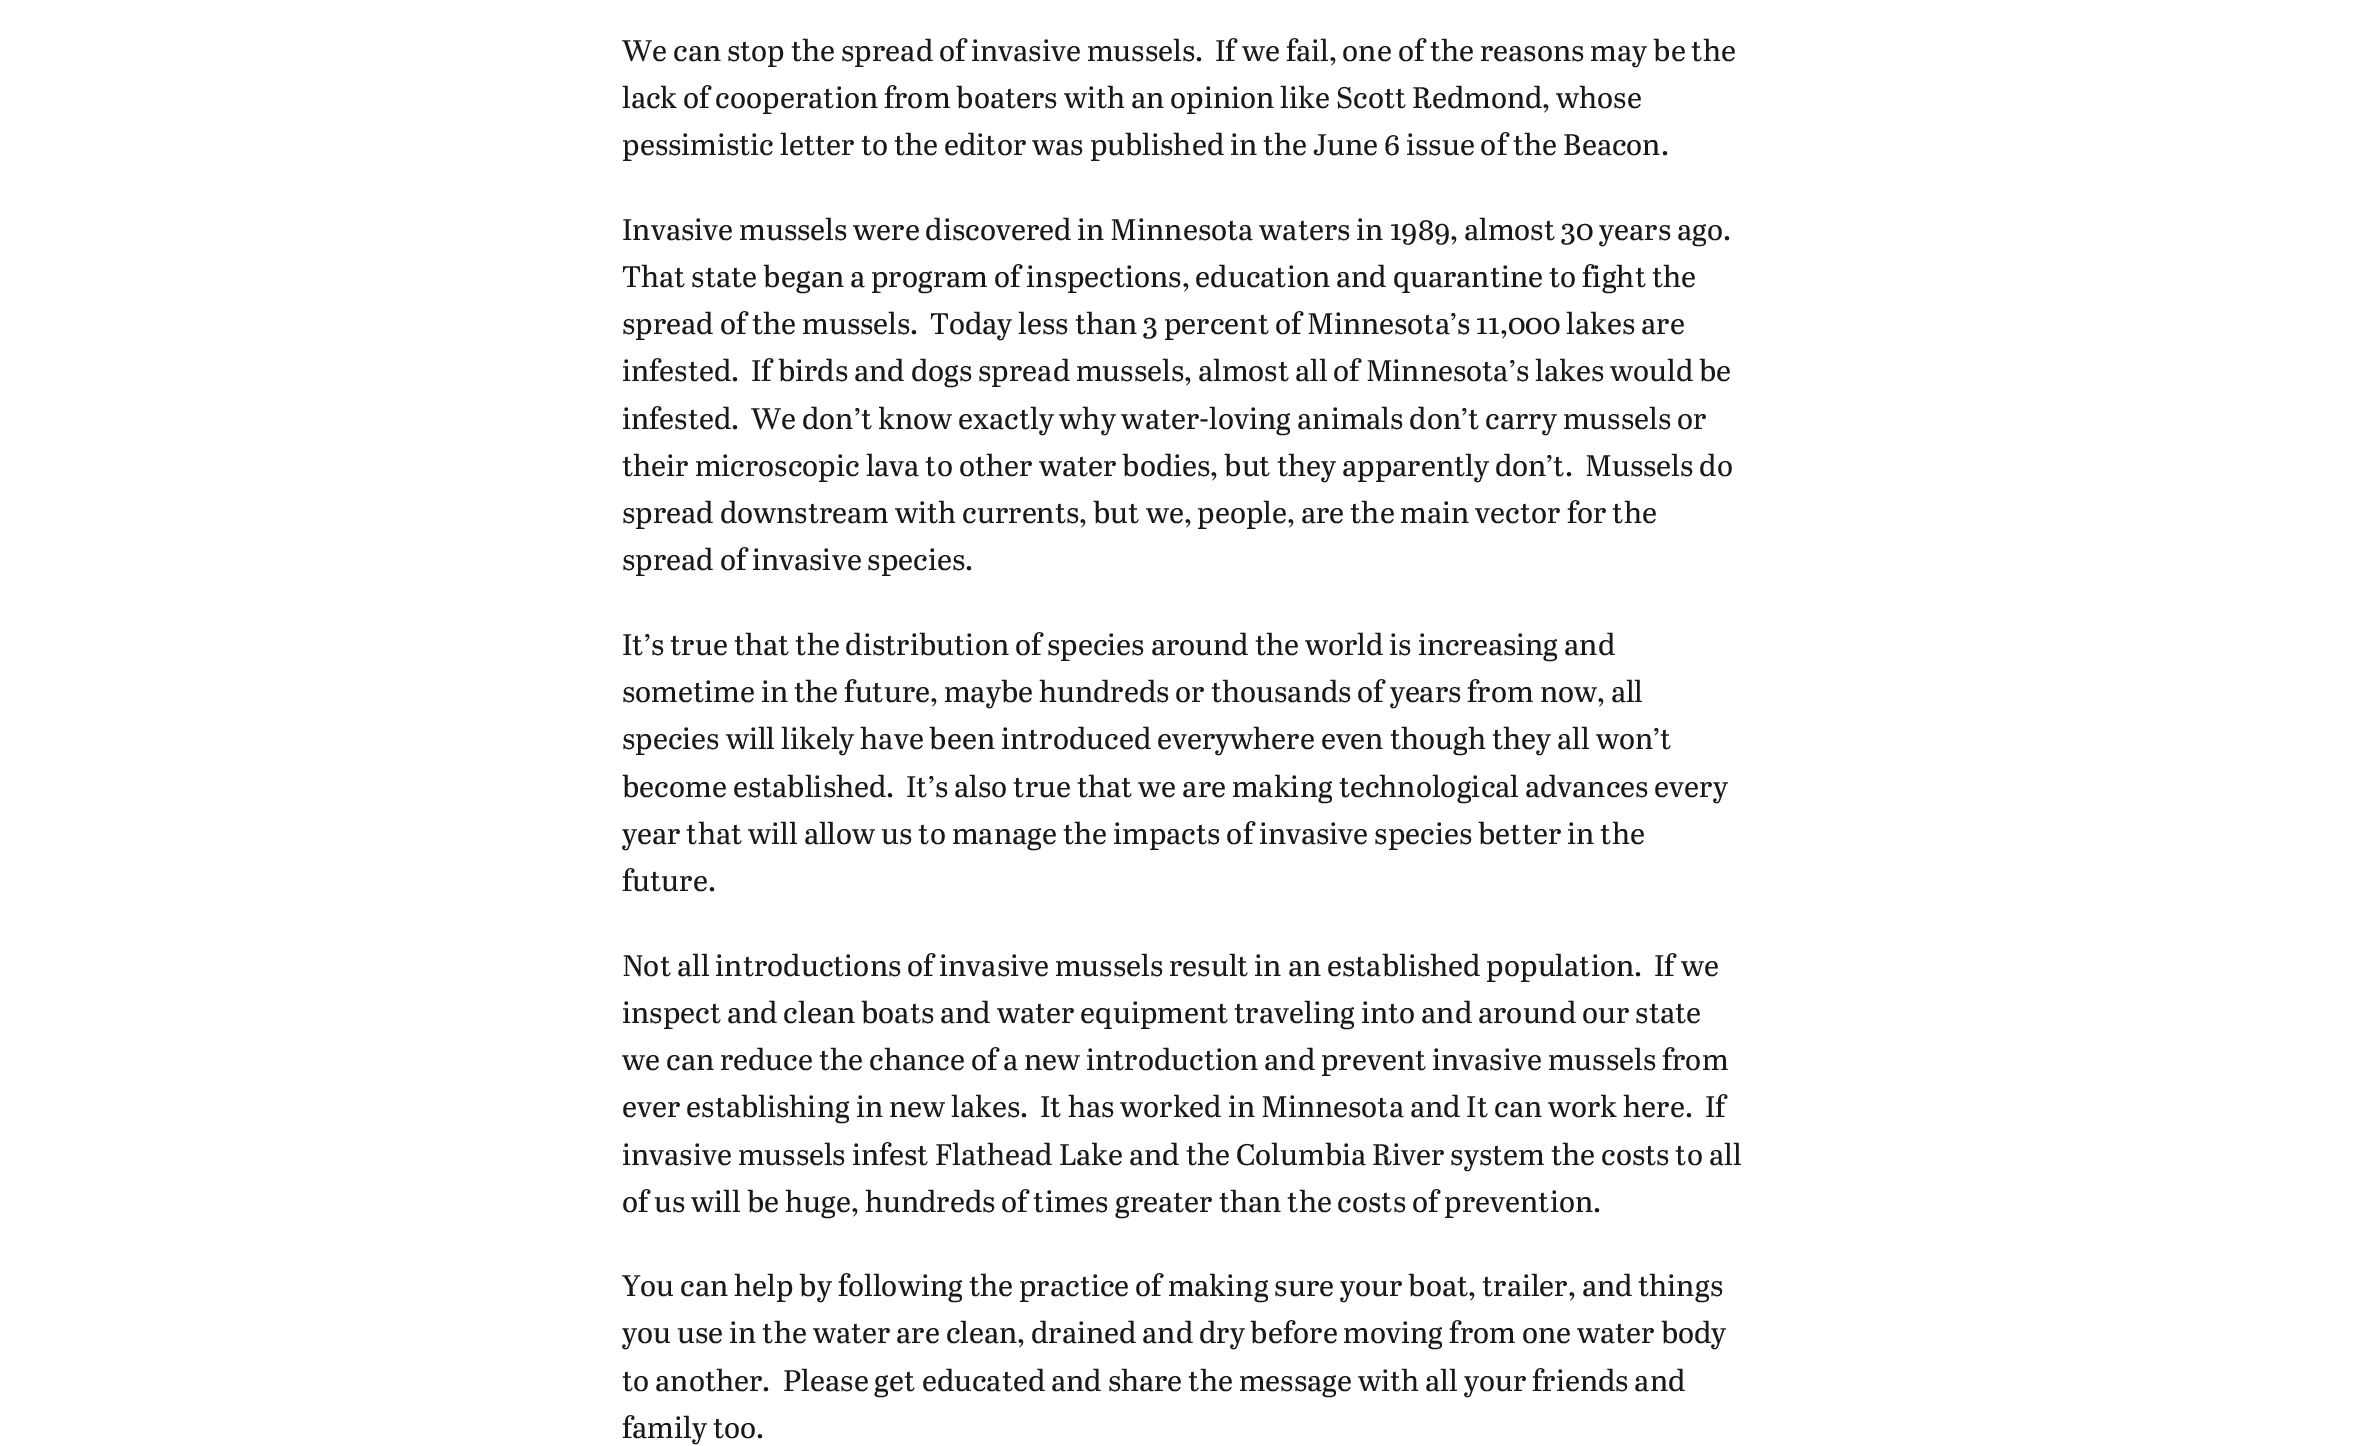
%!PS
<< /PageSize [2364 1446] >> setpagedevice
0 1446 translate 1 -1 scale
4 setmiterlimit
1 setgray
0 0 2364 1446 rectfill
/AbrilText-Regular [29.75 0 0 -29.75 0 0] selectfont
0.102 0.094 0.094 setrgbcolor
622 61 moveto (We can stop the spread of invasive mussels.) show
1215 61 moveto (If we fail, one of the reasons may be the) show
622 108 moveto (lack of cooperation from boaters with an opinion like Scott Redmond, whose) show
622 155 moveto (pessimistic letter to the editor was published in the June 6 issue of the Beacon.) show
622 240 moveto (Invasive mussels were discovered in Minnesota waters in 1989, almost 30 years ago.) show
622 287 moveto (That state began a program of inspections, education and quarantine to fight the) show
622 334 moveto (spread of the mussels.) show
930 334 moveto (Today less than 3 percent of Minnesota’s 11,000 lakes are) show
622 381 moveto (infested.) show
751 381 moveto (If birds and dogs spread mussels, almost all of Minnesota’s lakes would be) show
622 429 moveto (infested.) show
751 429 moveto (We don’t know exactly why water-loving animals don’t carry mussels or) show
622 476 moveto (their microscopic lava to other water bodies, but they apparently don’t.) show
1585 476 moveto (Mussels do) show
622 523 moveto (spread downstream with currents, but we, people, are the main vector for the) show
622 570 moveto (spread of invasive species.) show
622 655 moveto (It’s true that the distribution of species around the world is increasing and) show
622 702 moveto (sometime in the future, maybe hundreds or thousands of years from now, all) show
622 749 moveto (species will likely have been introduced everywhere even though they all won’t) show
622 797 moveto (become established.) show
906 797 moveto (It’s also true that we are making technological advances every) show
622 844 moveto (year that will allow us to manage the impacts of invasive species better in the) show
622 891 moveto (future.) show
622 976 moveto (Not all introductions of invasive mussels result in an established population.) show
1654 976 moveto (If we) show
622 1023 moveto (inspect and clean boats and water equipment traveling into and around our state) show
622 1070 moveto (we can reduce the chance of a new introduction and prevent invasive mussels from) show
622 1117 moveto (ever establishing in new lakes.) show
1040 1117 moveto (It has worked in Minnesota and It can work here.) show
1705 1117 moveto (If) show
622 1165 moveto (invasive mussels infest Flathead Lake and the Columbia River system the costs to all) show
622 1212 moveto (of us will be huge, hundreds of times greater than the costs of prevention.) show
622 1296 moveto (You can help by following the practice of making sure your boat, trailer, and things) show
622 1343 moveto (you use in the water are clean, drained and dry before moving from one water body) show
622 1391 moveto (to another.) show
783 1391 moveto (Please get educated and share the message with all your friends and) show
622 1438 moveto (family too.) show
showpage
